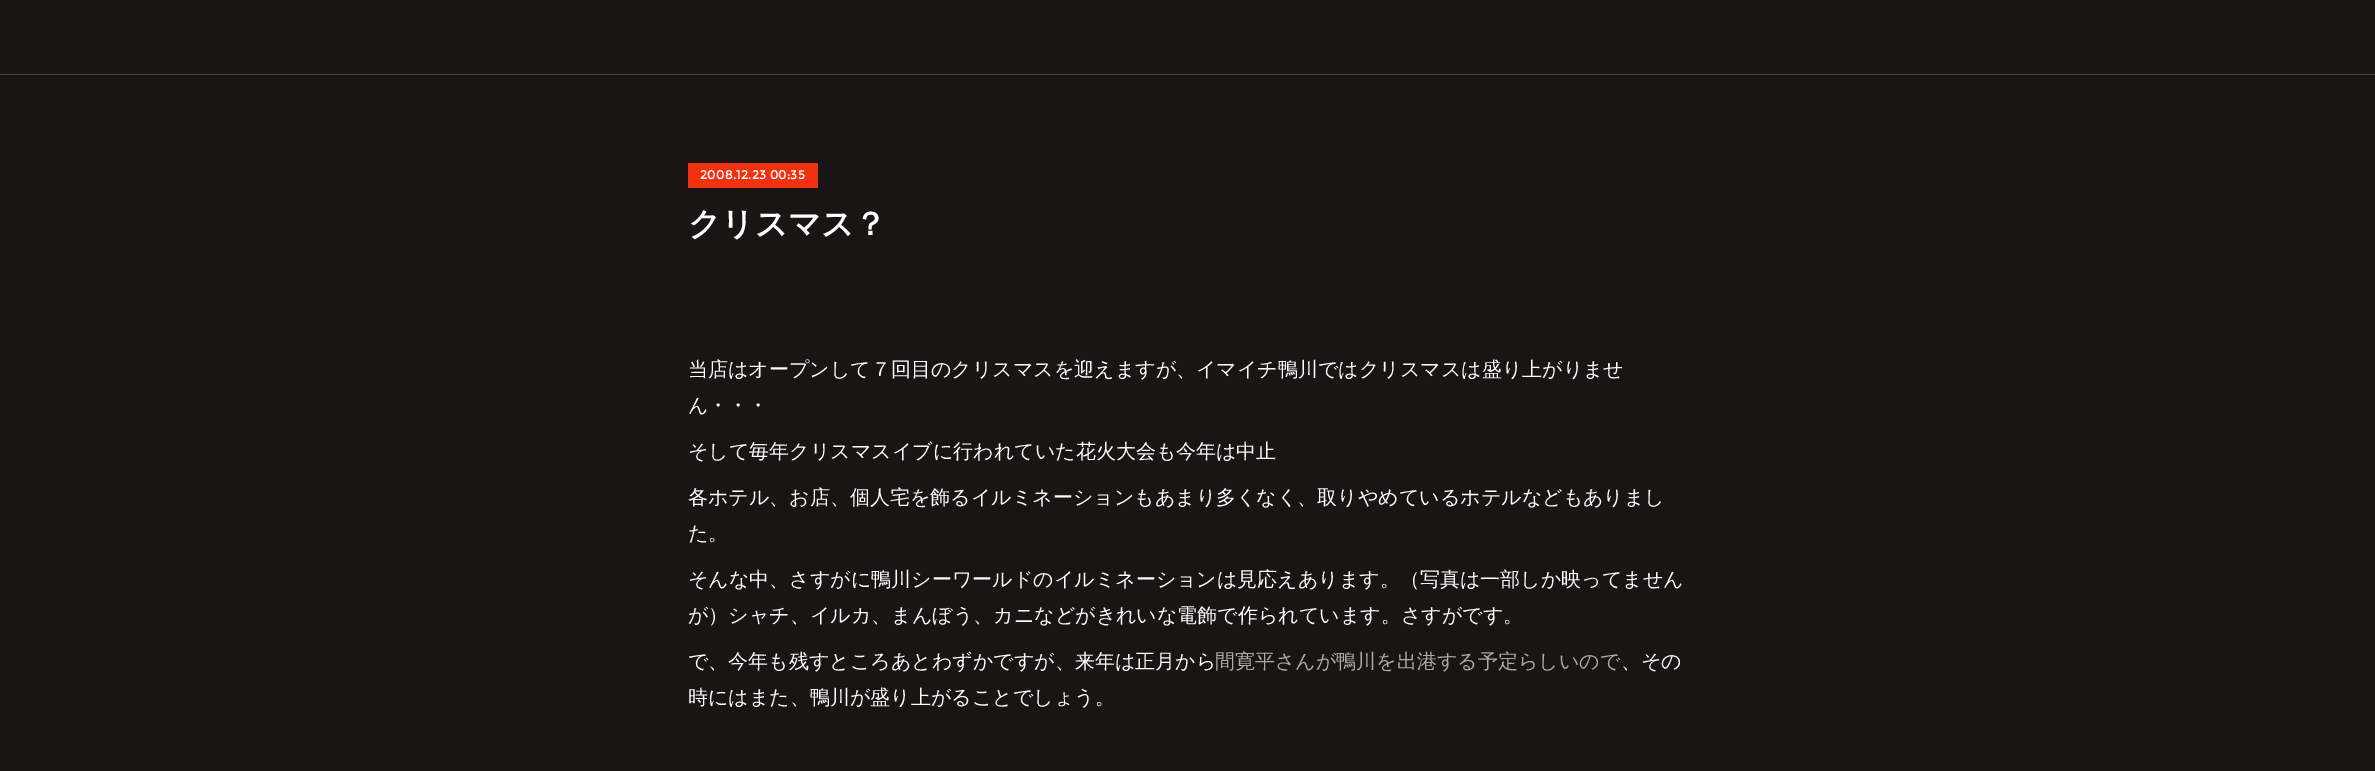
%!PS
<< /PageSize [2375 771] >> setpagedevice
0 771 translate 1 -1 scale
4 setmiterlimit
0.102 0.078 0.078 setrgbcolor
0 0 2375 771 rectfill
0.267 setgray
0 74 2375 1 rectfill
0.941 0.196 0.067 setrgbcolor
688 163 130 25 rectfill
/Montserrat-Regular [12.5 0 0 -12.5 0 0] selectfont
1 setgray
700 179 moveto (2008.12.23 00:35) show
/WenQuanYiZenHei-Bold [32.5 0 0 -32.5 0 0] selectfont
688 235 moveto (クリスマス？) show
/WenQuanYiZenHei-Medium [20 0 0 -20 0 0] selectfont
688 376 moveto (当店はオープンして７回目のクリスマスを迎えますが、イマイチ鴨川ではクリスマスは盛り上がりませ) show
688 412 moveto (ん・・・) show
688 458 moveto (そして毎年クリスマスイブに行われていた花火大会も今年は中止) show
688 504 moveto (各ホテル、お店、個人宅を飾るイルミネーションもあまり多くなく、取りやめているホテルなどもありまし) show
688 540 moveto (た。) show
688 586 moveto (そんな中、さすがに鴨川シーワールドのイルミネーションは見応えあります。（写真は一部しか映ってません) show
688 622 moveto (が）シャチ、イルカ、まんぼう、カニなどがきれいな電飾で作られています。さすがです。) show
688 668 moveto (で、今年も残すところあとわずかですが、来年は正月から) show
0.686 0.663 0.659 setrgbcolor
1215 668 moveto (間寛平さんが鴨川を出港する予定らしいので) show
1 setgray
1621 668 moveto (、その) show
688 704 moveto (時にはまた、鴨川が盛り上がることでしょう。) show
showpage
